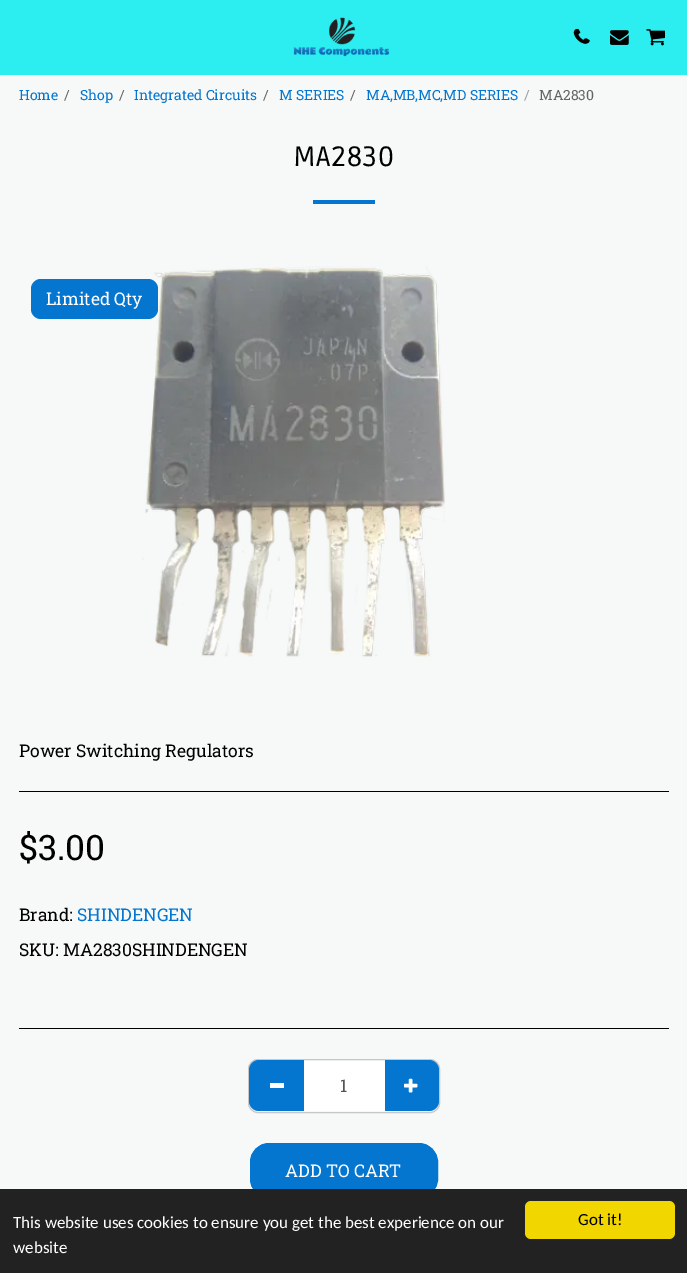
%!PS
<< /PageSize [687 1273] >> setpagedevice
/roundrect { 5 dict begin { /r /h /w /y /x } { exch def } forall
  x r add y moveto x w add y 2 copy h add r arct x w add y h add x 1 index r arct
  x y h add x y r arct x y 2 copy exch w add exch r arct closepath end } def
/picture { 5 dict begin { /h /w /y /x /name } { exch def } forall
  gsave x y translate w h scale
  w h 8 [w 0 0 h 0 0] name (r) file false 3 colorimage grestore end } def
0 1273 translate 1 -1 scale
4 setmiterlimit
0.969 0.976 0.973 setrgbcolor
0 0 687 1273 rectfill
0.173 0.933 0.941 setrgbcolor
0 0 687 75 rectfill
(img1.rgb) 293 17 97 40 picture
(img2.rgb) 575 28 15 16 picture
(img3.rgb) 573 29 14 15 picture
(img4.rgb) 610 30 19 15 picture
(img5.rgb) 646 29 19 17 picture
/RobotoSlab-Regular [14 0 0 -14 0 0] selectfont
0.016 0.463 0.816 setrgbcolor
19 100 moveto (Home) show
0.388 0.392 0.388 setrgbcolor
64 100 moveto (/) show
0.016 0.463 0.816 setrgbcolor
80 100 moveto (Shop) show
0.388 0.392 0.388 setrgbcolor
119 100 moveto (/) show
0.016 0.463 0.816 setrgbcolor
134 100 moveto (Integrated Circuits) show
0.388 0.392 0.388 setrgbcolor
263 100 moveto (/) show
0.016 0.463 0.816 setrgbcolor
279 100 moveto (M SERIES) show
0.388 0.392 0.388 setrgbcolor
350 100 moveto (/) show
0.016 0.463 0.816 setrgbcolor
366 100 moveto (MA,MB,MC,MD SERIES) show
0.62 0.624 0.624 setrgbcolor
524 100 moveto (/) show
0.388 0.392 0.388 setrgbcolor
539 100 moveto (MA2830) show
/Ruda-Regular [28 0 0 -28 0 0] selectfont
0 setgray
293 166 moveto 0.5 0 (MA2830) ashow
0.016 0.463 0.816 setrgbcolor
313 200 62 4 rectfill
(img6.rgb) 142 266 303 391 picture
31 279 127 40 10 roundrect fill
/RobotoSlab-Regular [17.5 0 0 -17.5 0 0] selectfont
1 setgray
46 305 moveto (Limited Qty) show
0 setgray
19 757 moveto (Power Switching Regulators) show
19 791 650 1 rectfill
/RobotoSlab-Regular [35 0 0 -35 0 0] selectfont
19 860 moveto ($3.00) show
/RobotoSlab-Regular [17.5 0 0 -17.5 0 0] selectfont
19 921 moveto (Brand:) show
0.016 0.463 0.816 setrgbcolor
77 921 moveto (SHINDENGEN) show
0 setgray
19 956 moveto (SKU: MA2830SHINDENGEN) show
19 1028 650 1 rectfill
0.776 0.78 0.776 setrgbcolor
248.5 1059.5 191 53 9.5 roundrect stroke
0.016 0.463 0.816 setrgbcolor
newpath 259 1060 moveto 305 1060 lineto 305 1111 lineto 259 1111 lineto 253.5 1111 249 1106.5 249 1101 curveto 249 1070 lineto 249 1064.5 253.5 1060 259 1060 curveto closepath fill
1 setgray
270 1083 14 5 rectfill
0.016 0.463 0.816 setrgbcolor
newpath 384 1060 moveto 429 1060 lineto 434.5 1060 439 1064.5 439 1070 curveto 439 1101 lineto 439 1106.5 434.5 1111 429 1111 curveto 384 1111 lineto closepath fill
1 setgray
304 1061 81 50 rectfill
0.925 setgray
304 1060 81 1 rectfill
0.333 setgray
340 1092 moveto (1) show
(img7.rgb) 404 1078 14 15 picture
0.016 0.463 0.816 setrgbcolor
250.5 1143.5 187 54 18.5 roundrect gsave fill grestore
stroke
1 setgray
285 1177 moveto (ADD TO CART) show
0.133 setgray
0 1189 687 84 rectfill
/Carlito-Regular [17 0 0 -17 0 0] selectfont
1 setgray
13 1228 moveto (This website uses cookies to ensure you get the best experience on our) show
13 1253 moveto (website) show
0.945 0.839 0 setrgbcolor
525 1201 150 38 6 roundrect fill
0 setgray
578 1225 moveto (Got it!) show
showpage
